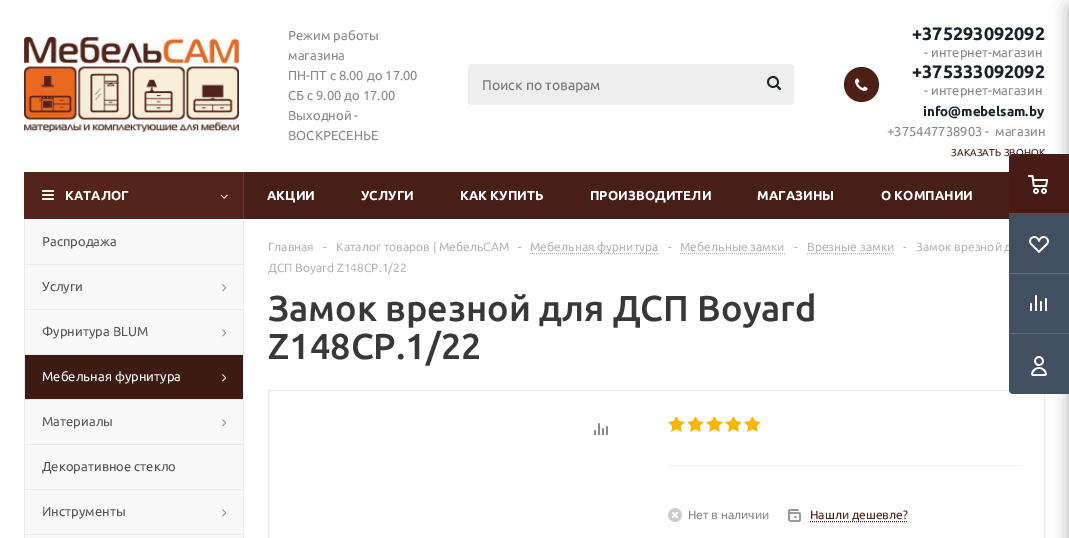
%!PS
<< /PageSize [1069 538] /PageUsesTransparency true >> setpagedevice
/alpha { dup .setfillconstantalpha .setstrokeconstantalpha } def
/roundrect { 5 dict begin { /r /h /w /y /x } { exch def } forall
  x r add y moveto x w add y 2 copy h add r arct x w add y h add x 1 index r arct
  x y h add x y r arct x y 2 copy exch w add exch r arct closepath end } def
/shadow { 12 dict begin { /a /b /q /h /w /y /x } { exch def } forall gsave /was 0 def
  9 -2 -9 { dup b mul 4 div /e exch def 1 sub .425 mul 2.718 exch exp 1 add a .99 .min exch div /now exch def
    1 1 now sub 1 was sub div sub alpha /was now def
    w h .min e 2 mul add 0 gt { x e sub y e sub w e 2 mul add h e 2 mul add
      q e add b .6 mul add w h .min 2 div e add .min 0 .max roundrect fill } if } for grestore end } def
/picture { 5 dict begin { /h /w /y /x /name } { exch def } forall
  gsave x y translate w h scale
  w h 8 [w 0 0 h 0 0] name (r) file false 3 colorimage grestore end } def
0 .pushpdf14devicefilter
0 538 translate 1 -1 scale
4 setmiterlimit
1 setgray
0 0 1069 538 rectfill
(img1.rgb) 24 37 215 95 picture
/Ubuntu-Regular [13 0 0 -13 0 0] selectfont
0.533 setgray
288 40 moveto (Режим работы) show
288 60 moveto (магазина) show
288 80 moveto (ПН-ПТ с 8.00 до 17.00) show
288 100 moveto (СБ с 9.00 до 17.00) show
288 120 moveto (Выходной -) show
288 140 moveto (ВОСКРЕСЕНЬЕ) show
0.933 setgray
468 64 326 41 4 roundrect fill
/Ubuntu-Regular [14 0 0 -14 0 0] selectfont
0.459 setgray
482 90 moveto (Поиск по товарам) show
(img2.rgb) 767 76 14 14 picture
0.918 0.922 0.925 setrgbcolor
268.5 390.5 776 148 rectstroke
0.173 setgray
1069 6 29 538 2 9 0.4 shadow
/Ubuntu-Regular [10 0 0 -10 0 0] selectfont
0.255 0.106 0.078 setrgbcolor
951 156 moveto 0.1 0 (ЗАКАЗАТЬ ЗВОНОК) ashow
/Ubuntu-Regular [12 0 0 -12 0 0] selectfont
0.714 0.71 0.71 setrgbcolor
916 251 moveto (Замок врезной д) show
0.259 0.31 0.376 setrgbcolor
newpath 1013 154 moveto 1069 154 lineto 1069 394 lineto 1013 394 lineto 1011 394 1009 392 1009 390 curveto 1009 158 lineto 1009 156 1011 154 1013 154 curveto closepath fill
0.286 0.106 0.086 setrgbcolor
newpath 1013 154 moveto 1069 154 lineto 1069 214 lineto 1009 214 lineto 1009 158 lineto 1009 156 1011 154 1013 154 curveto closepath fill
(img3.rgb) 1028 175 20 19 picture
0.412 0.271 0.259 setrgbcolor
1009 213 60 1 rectfill
(img4.rgb) 1029 236 20 17 picture
0.388 0.435 0.49 setrgbcolor
1009 273 60 1 rectfill
(img5.rgb) 1030 295 17 16 picture
1009 333 60 1 rectfill
(img6.rgb) 1031 356 16 20 picture
0.302 0.125 0.09 setrgbcolor
newpath 861.5 84.5 17.5 0 360 arc closepath fill
(img7.rgb) 855 78 13 13 picture
/Ubuntu-Bold [18 0 0 -18 0 0] selectfont
0.114 0.125 0.161 setrgbcolor
912 40 moveto (+375293092092) show
/Ubuntu-Regular [13 0 0 -13 0 0] selectfont
0.533 setgray
924 57 moveto (- интернет-магазин) show
/Ubuntu-Bold [18 0 0 -18 0 0] selectfont
0.114 0.125 0.161 setrgbcolor
912 78 moveto (+375333092092) show
/Ubuntu-Regular [13 0 0 -13 0 0] selectfont
0.533 setgray
924 95 moveto (- интернет-магазин) show
/Ubuntu-Bold [13.25 0 0 -13.25 0 0] selectfont
0.114 0.125 0.161 setrgbcolor
923 116 moveto (info@mebelsam.by) show
/Ubuntu-Regular [13 0 0 -13 0 0] selectfont
0.533 setgray
887 136 moveto (+375447738903 -  магазин) show
0.282 0.122 0.086 setrgbcolor
244 172 765 47 rectfill
0.329 0.141 0.102 setrgbcolor
24 172 219 47 rectfill
(img8.rgb) 42 190 12 10 picture
/Ubuntu-Bold [13 0 0 -13 0 0] selectfont
1 setgray
65 200 moveto (КАТАЛОГ) show
0.396 0.227 0.192 setrgbcolor
243 172 1 47 rectfill
(img9.rgb) 220 194 8 5 picture
1 setgray
267 200 moveto (АКЦИИ) show
361 200 moveto (УСЛУГИ) show
460 200 moveto (КАК КУПИТЬ) show
590 200 moveto (ПРОИЗВОДИТЕЛИ) show
757 200 moveto (МАГАЗИНЫ) show
881 200 moveto (О КОМПАНИИ) show
0.976 setgray
25 220 218 44 rectfill
0.918 0.922 0.925 setrgbcolor
243 220 1 44 rectfill
24 220 1 44 rectfill
/Ubuntu-Regular [13 0 0 -13 0 0] selectfont
0.333 setgray
42 246 moveto (Распродажа) show
0.976 setgray
25 265 218 44 rectfill
0.918 0.922 0.925 setrgbcolor
24 264 220 1 rectfill
243 264 1 45 rectfill
24 264 1 45 rectfill
0.333 setgray
42 291 moveto (Услуги) show
(img10.rgb) 222 284 5 8 picture
0.976 setgray
25 310 218 44 rectfill
0.918 0.922 0.925 setrgbcolor
24 309 220 1 rectfill
243 309 1 45 rectfill
24 309 1 45 rectfill
0.333 setgray
42 336 moveto (Фурнитура BLUM) show
(img10.rgb) 222 329 5 8 picture
0.239 0.102 0.071 setrgbcolor
25 355 218 44 rectfill
0.918 0.922 0.925 setrgbcolor
24 354 220 1 rectfill
243 354 1 45 rectfill
24 354 1 45 rectfill
1 setgray
42 381 moveto (Мебельная фурнитура) show
(img11.rgb) 222 374 5 8 picture
0.976 setgray
25 400 218 44 rectfill
0.918 0.922 0.925 setrgbcolor
24 399 220 1 rectfill
243 399 1 45 rectfill
24 399 1 45 rectfill
0.333 setgray
42 426 moveto (Материалы) show
(img10.rgb) 222 419 5 8 picture
0.976 setgray
25 445 218 44 rectfill
0.918 0.922 0.925 setrgbcolor
24 444 220 1 rectfill
243 444 1 45 rectfill
24 444 1 45 rectfill
0.333 setgray
42 471 moveto (Декоративное стекло) show
0.976 setgray
25 490 218 44 rectfill
0.918 0.922 0.925 setrgbcolor
24 489 220 1 rectfill
243 489 1 45 rectfill
24 489 1 45 rectfill
0.333 setgray
42 516 moveto (Инструменты) show
(img10.rgb) 222 509 5 8 picture
0.976 setgray
25 535 218 3 rectfill
0.918 0.922 0.925 setrgbcolor
24 534 220 1 rectfill
243 534 1 4 rectfill
24 534 1 4 rectfill
/Ubuntu-Regular [12 0 0 -12 0 0] selectfont
0.714 0.71 0.71 setrgbcolor
268 251 moveto (Главная) show
323 251 moveto (-) show
336 251 moveto (Каталог товаров | МебельСАМ) show
518 251 moveto (-) show
0.706 setgray
[1 1] 0 setdash
newpath 530 253.5 moveto 659 253.5 lineto stroke
0.714 0.71 0.71 setrgbcolor
530 251 moveto (Мебельная фурнитура) show
668 251 moveto (-) show
680 251 moveto (Мебельные замки) show
0.706 setgray
newpath 680 253.5 moveto 785 253.5 lineto stroke
0.714 0.71 0.71 setrgbcolor
794 251 moveto (-) show
0.706 setgray
newpath 807 253.5 moveto 894 253.5 lineto stroke
0.714 0.71 0.71 setrgbcolor
807 251 moveto (Врезные замки) show
903 251 moveto (-) show
268 272 moveto (ДСП Boyard Z148CP.1/22) show
/Ubuntu-Medium [36 0 0 -36 0 0] selectfont
0.22 setgray
268 321 moveto (Замок врезной для ДСП Boyard) show
268 359 moveto (Z148CP.1/22) show
(img12.rgb) 594 423 14 12 picture
0.949 setgray
668 465 355 1 rectfill
(img13.rgb) 668 417 17 15 picture
(img13.rgb) 687 417 17 15 picture
(img13.rgb) 706 417 17 15 picture
(img13.rgb) 725 417 17 15 picture
(img13.rgb) 744 417 17 15 picture
(img14.rgb) 668 508 14 14 picture
/Ubuntu-Regular [12 0 0 -12 0 0] selectfont
0.533 setgray
688 519 moveto (Нет в наличии) show
(img15.rgb) 788 509 13 13 picture
0.329 0.141 0.102 setrgbcolor
810 519 moveto (Нашли дешевле?) show
newpath 810 521.5 moveto 907 521.5 lineto stroke
.poppdf14devicefilter showpage
